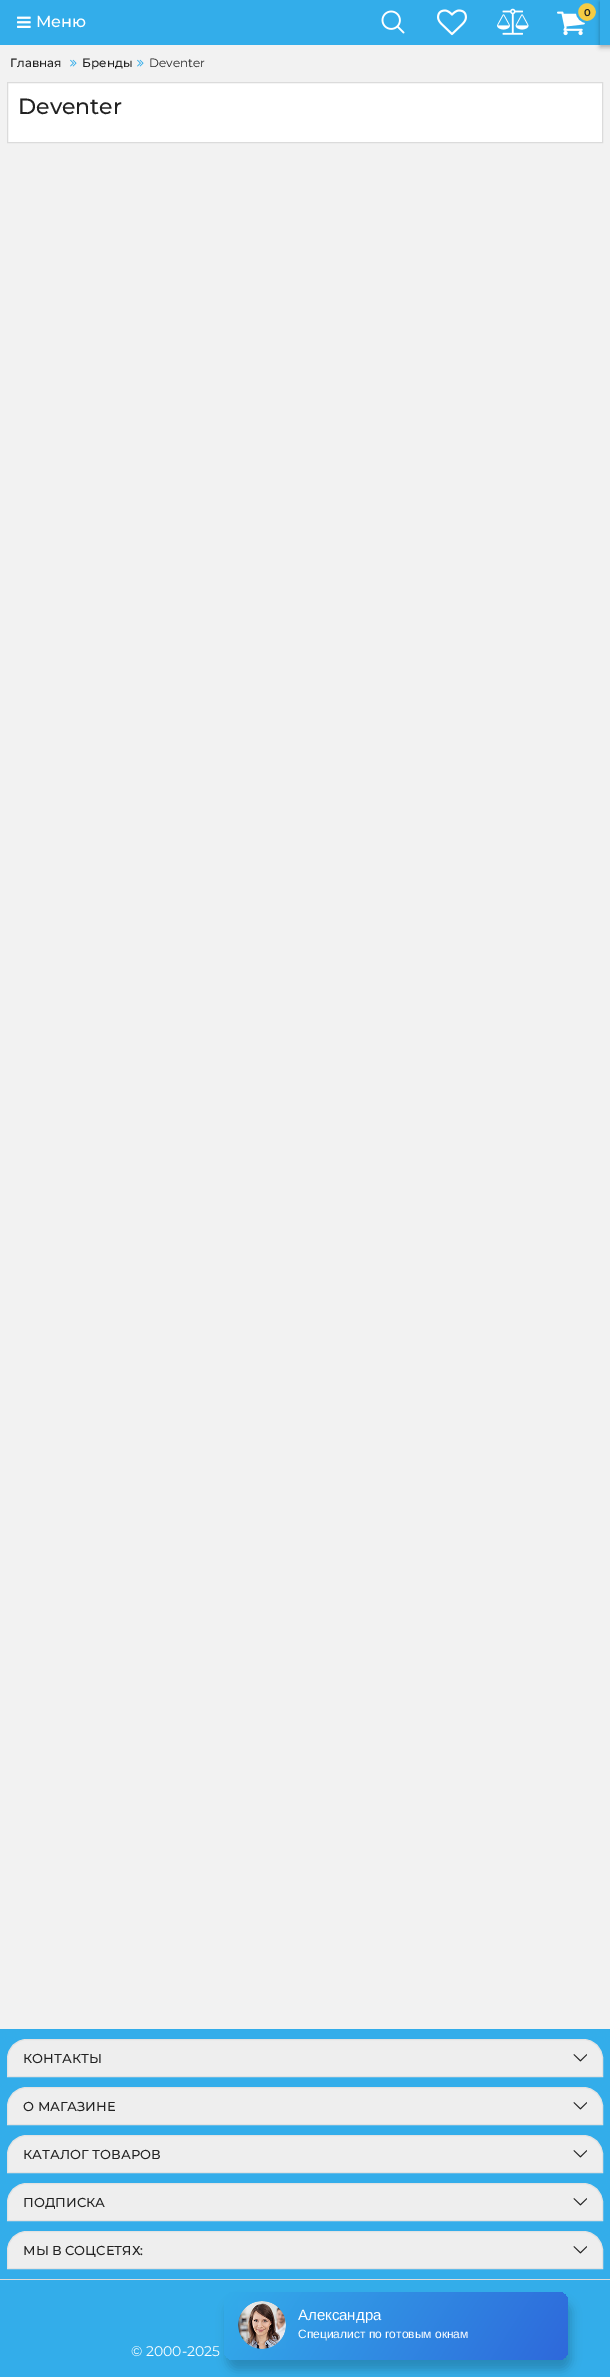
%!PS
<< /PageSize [610 2377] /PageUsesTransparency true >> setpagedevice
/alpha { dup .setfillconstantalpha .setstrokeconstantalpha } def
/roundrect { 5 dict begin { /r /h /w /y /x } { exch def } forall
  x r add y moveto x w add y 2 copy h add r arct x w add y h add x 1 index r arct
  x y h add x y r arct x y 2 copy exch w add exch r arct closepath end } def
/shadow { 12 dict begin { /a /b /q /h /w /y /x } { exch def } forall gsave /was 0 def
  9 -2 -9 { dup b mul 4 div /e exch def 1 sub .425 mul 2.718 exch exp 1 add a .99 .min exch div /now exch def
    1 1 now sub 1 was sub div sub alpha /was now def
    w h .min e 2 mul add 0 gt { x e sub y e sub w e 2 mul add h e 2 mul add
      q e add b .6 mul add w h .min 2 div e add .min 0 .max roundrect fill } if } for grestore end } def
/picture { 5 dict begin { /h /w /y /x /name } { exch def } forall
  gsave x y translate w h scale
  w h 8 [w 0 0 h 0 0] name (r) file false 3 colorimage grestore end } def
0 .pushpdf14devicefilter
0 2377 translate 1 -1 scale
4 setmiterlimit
0.949 setgray
0 0 610 2377 rectfill
0.2 0.678 0.918 setrgbcolor
0 0 610 45 rectfill
(img1.rgb) 381 10 24 24 picture
(img2.rgb) 437 9 30 27 picture
(img3.rgb) 497 8 32 27 picture
(img4.rgb) 557 11 28 25 picture
0.961 0.8 0.263 setrgbcolor
newpath 587 12 10 0 360 arc closepath gsave fill grestore
0.2 0.678 0.918 setrgbcolor
2 setlinewidth
stroke
/Montserrat-SemiBold [10 0 0 -10 0 0] selectfont
0.133 setgray
584 16 moveto (0) show
(img5.rgb) 17 16 14 12 picture
/Montserrat-Medium [16 0 0 -16 0 0] selectfont
1 setgray
36 27 moveto (Меню) show
/Montserrat-Medium [12 0 0 -12 0 0] selectfont
0.133 setgray
10 67 moveto (Главная) show
(img6.rgb) 70 59 7 8 picture
82 67 moveto (Бренды) show
(img6.rgb) 137 59 7 8 picture
/Montserrat-Regular [12 0 0 -12 0 0] selectfont
149 67 moveto (Deventer) show
gsave
newpath 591 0 moveto 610 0 lineto 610 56 lineto 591 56 lineto closepath 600 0 moveto 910 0 lineto 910 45 lineto 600 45 lineto closepath eoclip newpath
0 setgray
600 2 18 45 0 2.5 0.3 shadow
grestore
1 setgray
newpath 7.5 82.5 moveto 602.5 82.5 lineto 602.5 142.5 lineto 7.5 142.5 lineto closepath gsave fill grestore
0.859 setgray
1 setlinewidth
stroke
/Montserrat-Medium [22 0 0 -22 0 0] selectfont
0.133 setgray
18 114 moveto (Deventer) show
0.2 0.678 0.918 setrgbcolor
0 2029 610 348 rectfill
0.933 setgray
newpath 27 2039.5 moveto 583 2039.5 lineto 594 2039.5 602.5 2048 602.5 2059 curveto 602.5 2076.5 lineto 7.5 2076.5 lineto 7.5 2059 lineto 7.5 2048 16 2039.5 27 2039.5 curveto closepath gsave fill grestore
0.886 setgray
stroke
/Montserrat-Medium [13 0 0 -13 0 0] selectfont
0.133 setgray
23 2063 moveto (КОНТАКТЫ) show
(img7.rgb) 573 2054 14 8 picture
0.933 setgray
newpath 27 2087.5 moveto 583 2087.5 lineto 594 2087.5 602.5 2096 602.5 2107 curveto 602.5 2124.5 lineto 7.5 2124.5 lineto 7.5 2107 lineto 7.5 2096 16 2087.5 27 2087.5 curveto closepath gsave fill grestore
0.886 setgray
stroke
0.133 setgray
23 2111 moveto (О МАГАЗИНЕ) show
(img7.rgb) 573 2102 14 8 picture
0.933 setgray
newpath 27 2135.5 moveto 583 2135.5 lineto 594 2135.5 602.5 2144 602.5 2155 curveto 602.5 2172.5 lineto 7.5 2172.5 lineto 7.5 2155 lineto 7.5 2144 16 2135.5 27 2135.5 curveto closepath gsave fill grestore
0.886 setgray
stroke
0.133 setgray
23 2159 moveto (КАТАЛОГ ТОВАРОВ) show
(img7.rgb) 573 2150 14 8 picture
0.933 setgray
newpath 27 2183.5 moveto 583 2183.5 lineto 594 2183.5 602.5 2192 602.5 2203 curveto 602.5 2220.5 lineto 7.5 2220.5 lineto 7.5 2203 lineto 7.5 2192 16 2183.5 27 2183.5 curveto closepath gsave fill grestore
0.886 setgray
stroke
0.133 setgray
23 2207 moveto (ПОДПИСКА) show
(img7.rgb) 573 2198 14 8 picture
0.933 setgray
newpath 27 2231.5 moveto 583 2231.5 lineto 594 2231.5 602.5 2240 602.5 2251 curveto 602.5 2268.5 lineto 7.5 2268.5 lineto 7.5 2251 lineto 7.5 2240 16 2231.5 27 2231.5 curveto closepath gsave fill grestore
0.886 setgray
stroke
0.133 setgray
23 2255 moveto (МЫ В СОЦСЕТЯХ:) show
(img7.rgb) 573 2246 14 8 picture
0.859 setgray
0 2279 610 1 rectfill
/Montserrat-Regular [14 0 0 -14 0 0] selectfont
1 setgray
131 2356 moveto (© 2000-2025) show
0 setgray
227 2302 344 68 10 5 0.2 shadow
gsave 224 2292 344 68 10 roundrect clip newpath
<< /ShadingType 2 /ColorSpace /DeviceRGB /Coords [533 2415 259 2237] /Extend [true true] /Function << /FunctionType 2 /Domain [0 1] /C0 [0.18 0.408 0.859] /C1 [0.2 0.678 0.918] /N 1 >> >> shfill grestore
(img8.rgb) 238 2301 48 48 picture
/LiberationSans-Regular [15 0 0 -15 0 0] selectfont
1 setgray
298 2320 moveto (Александра) show
/LiberationSans-Regular [12 0 0 -12 0 0] selectfont
298 2338 moveto (Специалист по готовым окнам) show
.poppdf14devicefilter showpage
